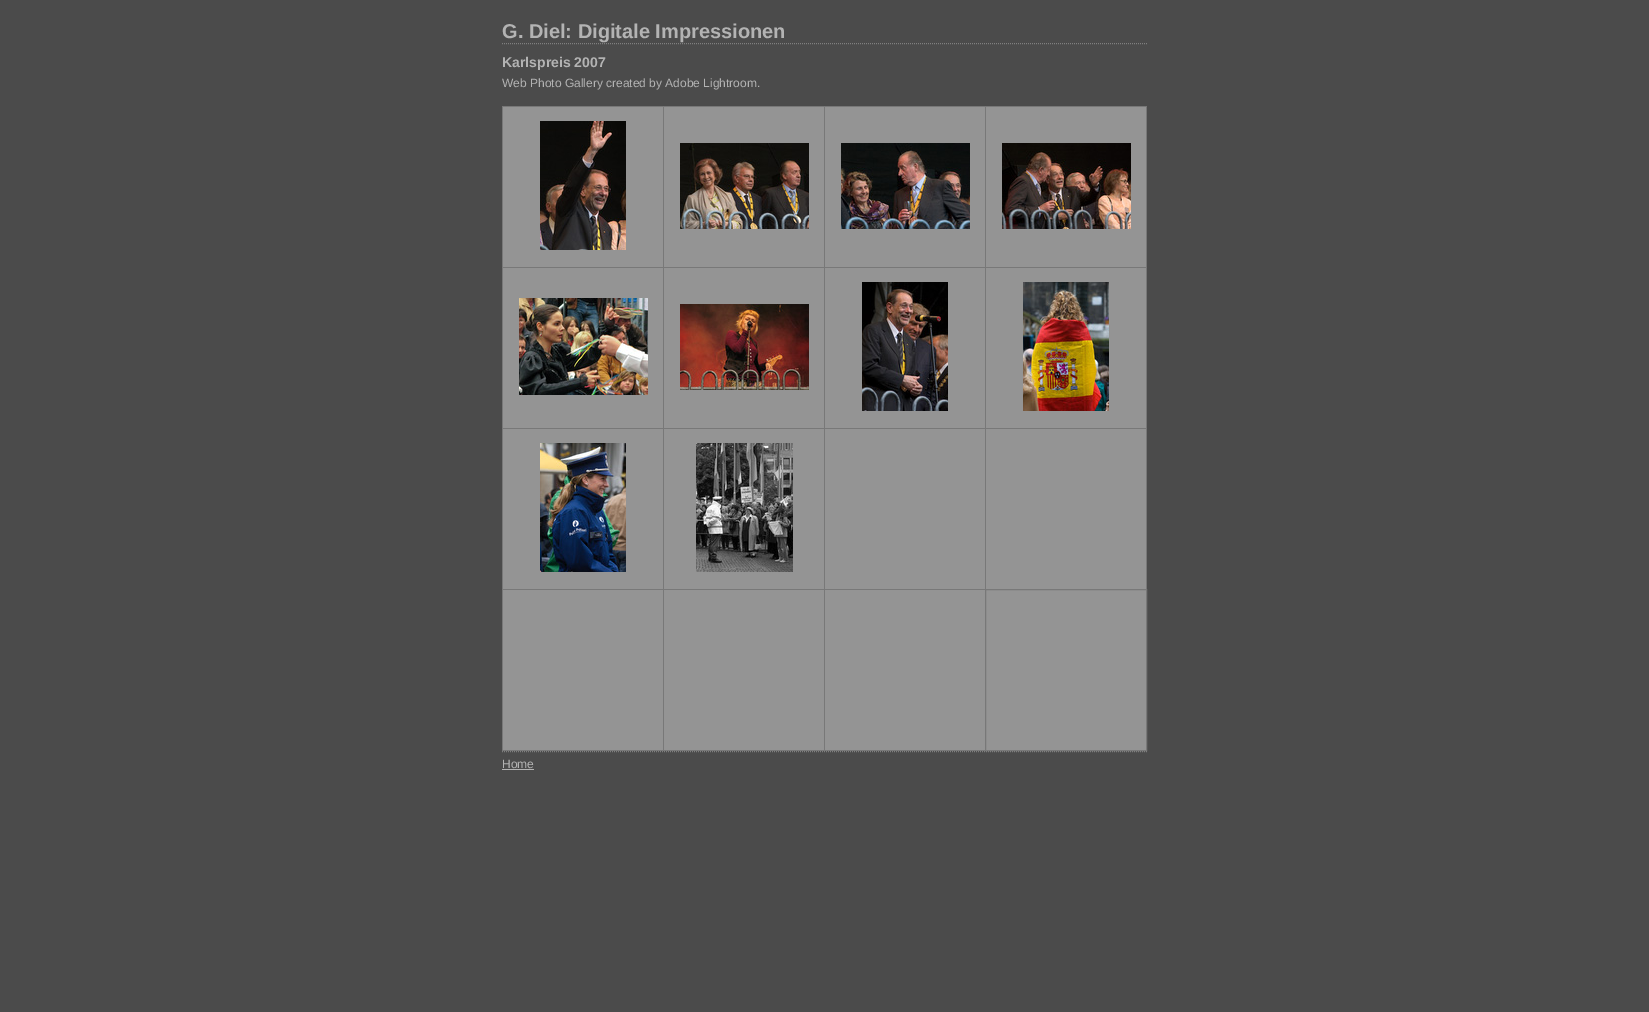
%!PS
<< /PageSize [1649 1012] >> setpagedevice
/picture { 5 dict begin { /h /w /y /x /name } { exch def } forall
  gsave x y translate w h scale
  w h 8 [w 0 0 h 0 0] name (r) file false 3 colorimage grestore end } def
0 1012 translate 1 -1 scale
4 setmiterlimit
0.294 setgray
0 0 1649 1012 rectfill
0.498 setgray
[1 1] 0 setdash
newpath 502 43.5 moveto 1147 43.5 lineto stroke
/LiberationSans-Bold [20 0 0 -20 0 0] selectfont
0.702 setgray
502 38 moveto (G. Diel: Digitale Impressionen) show
/LiberationSans-Bold [14 0 0 -14 0 0] selectfont
502 67 moveto (Karlspreis 2007) show
/LiberationSans-Regular [12 0 0 -12 0 0] selectfont
502 87 moveto (Web Photo Gallery created by Adobe Lightroom.) show
0.58 setgray
503 107 160 160 rectfill
0.471 setgray
502 106 645 1 rectfill
502 106 1 161 rectfill
(img1.rgb) 540 121 86 129 picture
0.58 setgray
664 107 160 160 rectfill
0.471 setgray
663 106 1 161 rectfill
(img2.rgb) 680 143 129 86 picture
0.58 setgray
825 107 160 160 rectfill
0.471 setgray
824 106 1 161 rectfill
(img3.rgb) 841 143 129 86 picture
0.58 setgray
986 107 160 160 rectfill
0.471 setgray
1146 106 1 161 rectfill
985 106 1 161 rectfill
(img4.rgb) 1002 143 129 86 picture
0.58 setgray
503 268 160 160 rectfill
0.471 setgray
502 267 645 1 rectfill
502 267 1 161 rectfill
(img5.rgb) 519 298 129 97 picture
0.58 setgray
664 268 160 160 rectfill
0.471 setgray
663 267 1 161 rectfill
(img6.rgb) 680 304 129 86 picture
0.58 setgray
825 268 160 160 rectfill
0.471 setgray
824 267 1 161 rectfill
(img7.rgb) 862 282 86 129 picture
0.58 setgray
986 268 160 160 rectfill
0.471 setgray
1146 267 1 161 rectfill
985 267 1 161 rectfill
(img8.rgb) 1023 282 86 129 picture
0.58 setgray
503 429 160 160 rectfill
0.471 setgray
502 428 645 1 rectfill
502 428 1 161 rectfill
(img9.rgb) 540 443 86 129 picture
0.58 setgray
664 429 160 160 rectfill
0.471 setgray
663 428 1 161 rectfill
(img10.rgb) 696 443 97 129 picture
0.58 setgray
825 429 160 160 rectfill
0.471 setgray
824 428 1 161 rectfill
0.58 setgray
986 429 160 160 rectfill
0.471 setgray
1146 428 1 161 rectfill
985 428 1 161 rectfill
0.58 setgray
503 590 160 160 rectfill
0.471 setgray
502 589 483 1 rectfill
502 750 483 1 rectfill
502 589 1 162 rectfill
0.58 setgray
664 590 160 160 rectfill
0.471 setgray
663 589 1 162 rectfill
0.58 setgray
825 590 160 160 rectfill
0.471 setgray
824 589 1 162 rectfill
0.58 setgray
newpath 985.5 589.5 moveto 1146.5 589.5 lineto 1146.5 750.5 lineto 985.5 750.5 lineto closepath gsave fill grestore
0.471 setgray
[] 0 setdash
stroke
0.498 setgray
[1 1] 0 setdash
newpath 502 751.5 moveto 1147 751.5 lineto stroke
0.702 setgray
502 768 moveto (Home) show
502 769 32 1 rectfill
showpage
